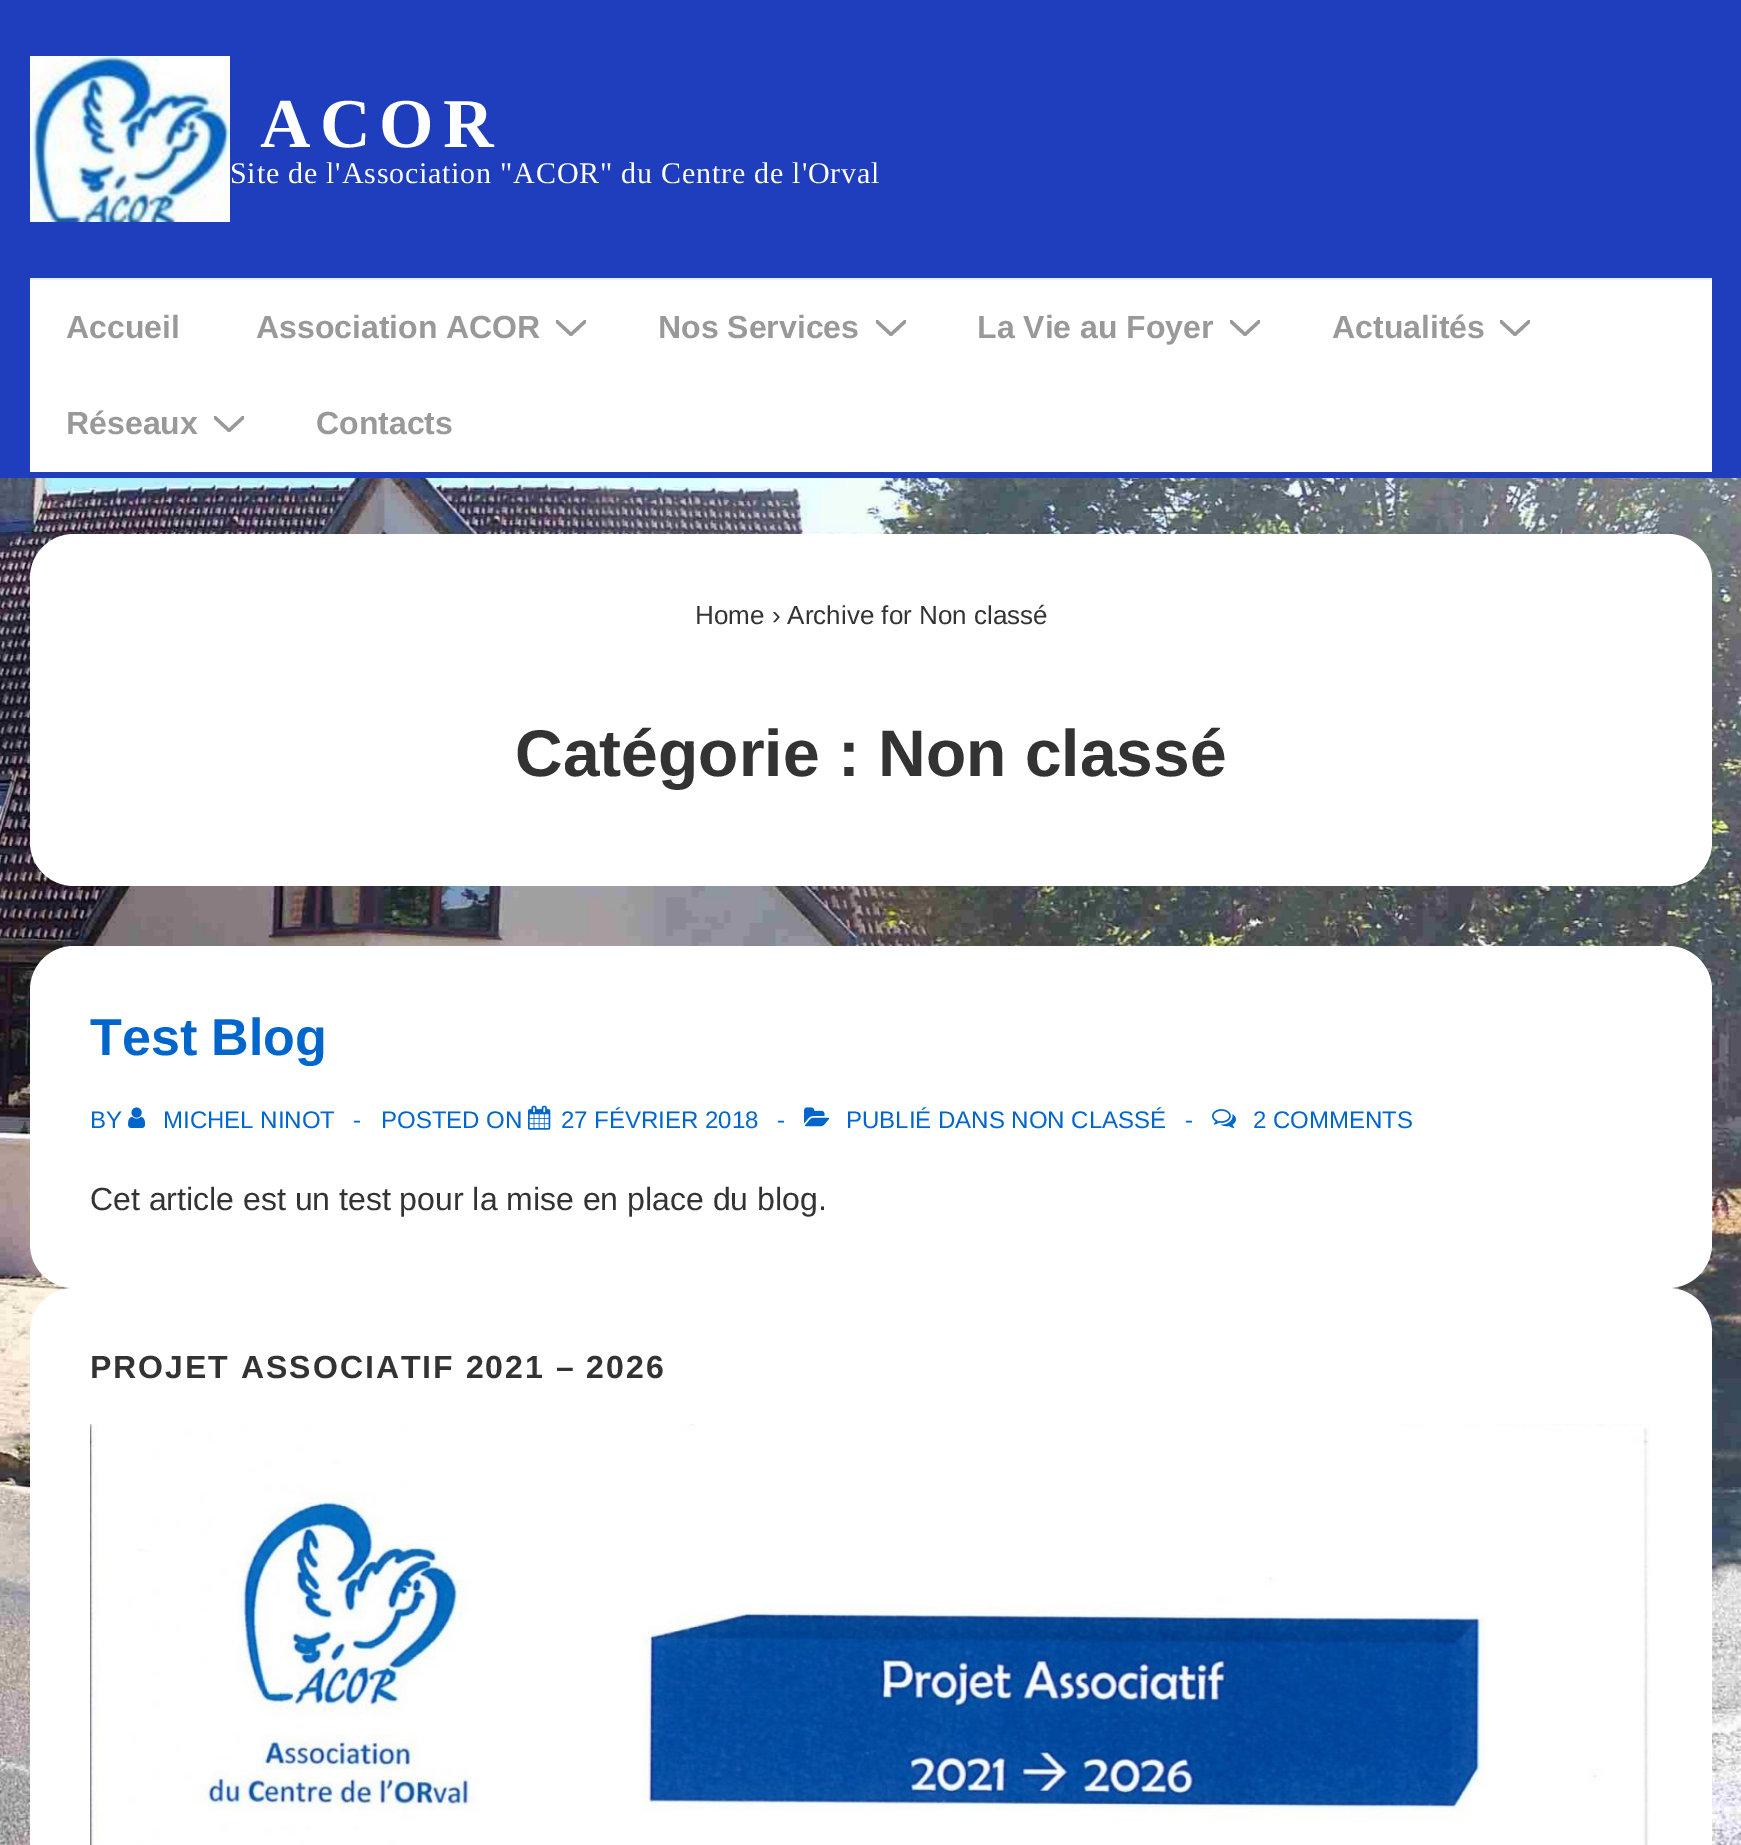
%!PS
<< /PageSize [1741 1845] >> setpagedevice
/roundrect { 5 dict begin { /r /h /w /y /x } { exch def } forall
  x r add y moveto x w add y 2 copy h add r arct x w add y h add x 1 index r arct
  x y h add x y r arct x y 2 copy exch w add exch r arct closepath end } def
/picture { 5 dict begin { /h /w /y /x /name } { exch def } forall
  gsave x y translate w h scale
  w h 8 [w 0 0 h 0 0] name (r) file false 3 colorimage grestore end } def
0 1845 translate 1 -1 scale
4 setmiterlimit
1 setgray
0 0 1741 1845 rectfill
(img1.rgb) 0 478 1741 1367 picture
0.118 0.243 0.745 setrgbcolor
0 0 1741 478 rectfill
(img2.rgb) 30 56 200 166 picture
/LiberationSerif-Bold [70 0 0 -70 0 0] selectfont
1 setgray
260 147 moveto 9 0 (ACOR) ashow
/LiberationSerif-Regular [30 0 0 -30 0 0] selectfont
230 183 moveto 0.8 0 (Site de l'Association "ACOR" du Centre de l'Orval) ashow
30 280 1682 192 rectfill
0.918 setgray
30 278 1682 2 rectfill
/LiberationSans-Bold [32 0 0 -32 0 0] selectfont
0.6 setgray
66 338 moveto (Accueil) show
256 338 moveto (Association ACOR) show
gsave
556 320 30 16 rectclip
3.3 setlinewidth
1 setlinecap
newpath 557 321.5 moveto 571 334.5 lineto 585 321.5 lineto stroke
grestore
658 338 moveto (Nos Services) show
gsave
876 320 30 16 rectclip
3.3 setlinewidth
1 setlinecap
newpath 877 321.5 moveto 891 334.5 lineto 905 321.5 lineto stroke
grestore
977 338 moveto (La Vie au Foyer) show
gsave
1230 320 30 16 rectclip
3.3 setlinewidth
1 setlinecap
newpath 1231 321.5 moveto 1245 334.5 lineto 1259 321.5 lineto stroke
grestore
1332 338 moveto (Actualités) show
gsave
1500 320 30 16 rectclip
3.3 setlinewidth
1 setlinecap
newpath 1501 321.5 moveto 1515 334.5 lineto 1529 321.5 lineto stroke
grestore
66 434 moveto (Réseaux) show
gsave
214 416 30 16 rectclip
3.3 setlinewidth
1 setlinecap
newpath 215 417.5 moveto 229 430.5 lineto 243 417.5 lineto stroke
grestore
316 434 moveto (Contacts) show
1 setgray
30 534 1682 352 44 roundrect fill
/LiberationSans-Regular [26 0 0 -26 0 0] selectfont
0.2 setgray
695 624 moveto (Home › Archive for Non classé) show
/LiberationSans-Bold [66 0 0 -66 0 0] selectfont
515 776 moveto (Catégorie : Non classé) show
1 setgray
30 946 1682 342 44 roundrect fill
/LiberationSans-Bold [52 0 0 -52 0 0] selectfont
0 0.4 0.8 setrgbcolor
90 1055 moveto (Test Blog) show
/LiberationSans-Regular [24 0 0 -24 0 0] selectfont
90 1128 moveto (BY) show
(img3.rgb) 128 1107 18 21 picture
163 1128 moveto (MICHEL NINOT) show
353 1128 moveto (-) show
381 1128 moveto (POSTED ON) show
(img4.rgb) 528 1105 23 25 picture
561 1128 moveto (27 FÉVRIER 2018) show
777 1128 moveto (-) show
(img5.rgb) 804 1107 26 20 picture
846 1128 moveto (PUBLIÉ DANS NON CLASSÉ) show
1185 1128 moveto (-) show
(img6.rgb) 1212 1109 24 19 picture
1253 1128 moveto (2 COMMENTS) show
/LiberationSans-Regular [32 0 0 -32 0 0] selectfont
0.2 setgray
90 1210 moveto (Cet article est un test pour la mise en place du blog.) show
1 setgray
30 1288 1682 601 44 roundrect fill
/LiberationSans-Bold [32 0 0 -32 0 0] selectfont
0.2 setgray
90 1378 moveto 2 0 (PROJET ASSOCIATIF 2021 – 2026) ashow
(img7.rgb) 90 1424 1561 421 picture
showpage
